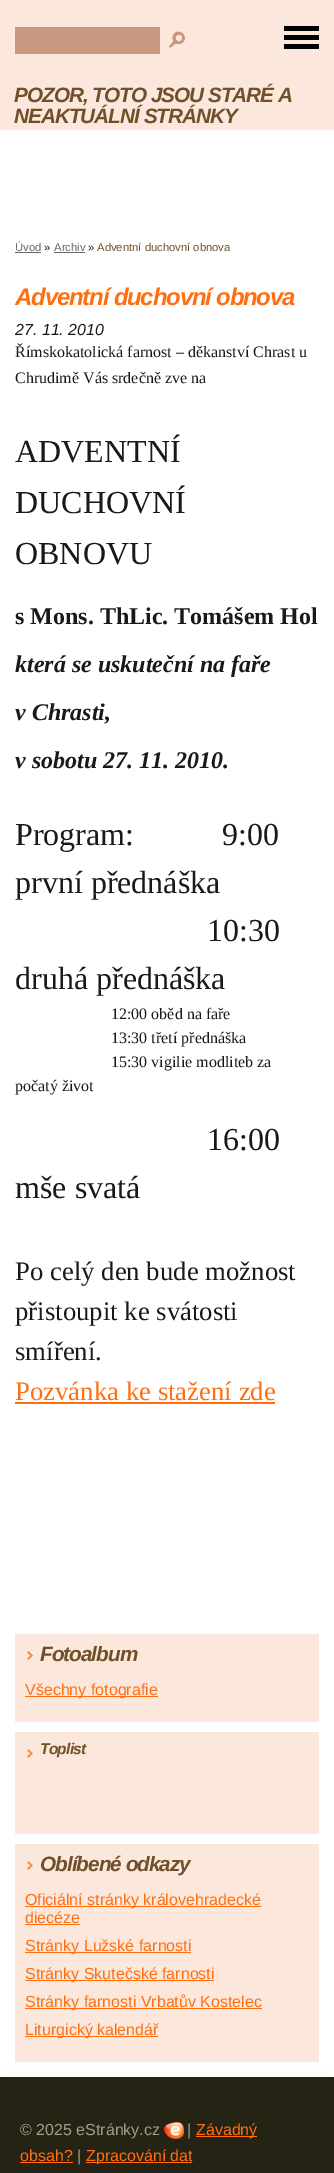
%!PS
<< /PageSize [334 2173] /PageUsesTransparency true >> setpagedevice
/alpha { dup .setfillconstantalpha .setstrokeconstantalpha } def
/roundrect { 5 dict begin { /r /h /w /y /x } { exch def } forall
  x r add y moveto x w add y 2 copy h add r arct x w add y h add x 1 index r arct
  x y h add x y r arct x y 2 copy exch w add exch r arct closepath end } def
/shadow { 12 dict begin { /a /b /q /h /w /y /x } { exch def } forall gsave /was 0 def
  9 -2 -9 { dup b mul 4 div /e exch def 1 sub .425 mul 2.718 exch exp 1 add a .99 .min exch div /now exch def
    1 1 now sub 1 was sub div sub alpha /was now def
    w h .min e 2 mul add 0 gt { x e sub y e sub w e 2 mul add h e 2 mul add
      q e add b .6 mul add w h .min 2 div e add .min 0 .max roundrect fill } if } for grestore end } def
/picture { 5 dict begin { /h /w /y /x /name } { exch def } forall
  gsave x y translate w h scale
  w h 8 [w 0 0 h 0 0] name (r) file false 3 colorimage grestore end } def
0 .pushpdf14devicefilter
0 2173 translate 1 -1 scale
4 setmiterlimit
0.988 0.906 0.863 setrgbcolor
0 0 334 2173 rectfill
1 setgray
0 130 334 1947 rectfill
0 setgray
284 26 35 5 rectfill
284 35 35 5 rectfill
284 44 35 5 rectfill
/LiberationSans-BoldItalic [20.75 0 0 -20.75 0 0] selectfont
0.439 0.314 0.169 setrgbcolor
14 102 moveto -1 0 (POZOR, TOTO JSOU STARÉ A) ashow
14 123 moveto -1 0 (NEAKTUÁLNÍ STRÁNKY) ashow
/LiberationSans-Regular [11.25 0 0 -11.25 0 0] selectfont
0.4 setgray
15 251 moveto (Úvod) show
15 252 26 1 rectfill
0.098 setgray
44 251 moveto (») show
0.4 setgray
54 251 moveto (Archiv) show
54 252 31 1 rectfill
0.098 setgray
88 251 moveto (») show
0.439 0.314 0.169 setrgbcolor
97 251 moveto (Adventní duchovní obnova) show
/LiberationSans-BoldItalic [24 0 0 -24 0 0] selectfont
1 0.435 0.071 setrgbcolor
15 305 moveto -1.2 0 (Adventní duchovní obnova) ashow
/LiberationSans-Italic [16 0 0 -16 0 0] selectfont
0.098 setgray
15 335 moveto (27. 11. 2010) show
/LiberationSerif-Regular [16 0 0 -16 0 0] selectfont
15 357 moveto (Římskokatolická farnost – děkanství Chrast u) show
15 383 moveto (Chrudimě Vás srdečně zve na) show
/LiberationSerif-Regular [32 0 0 -32 0 0] selectfont
15 462 moveto (ADVENTNÍ) show
15 513 moveto (DUCHOVNÍ) show
15 564 moveto (OBNOVU) show
/LiberationSerif-Bold [24 0 0 -24 0 0] selectfont
15 624 moveto (s Mons. ThLic. Tomášem Hol) show
/LiberationSerif-BoldItalic [24 0 0 -24 0 0] selectfont
15 672 moveto (která se uskuteční na faře) show
15 720 moveto (v Chrasti,) show
15 768 moveto (v sobotu 27. 11. 2010.) show
/LiberationSerif-Regular [32 0 0 -32 0 0] selectfont
15 845 moveto (Program:) show
222 845 moveto (9:00) show
15 893 moveto (první přednáška) show
207 941 moveto (10:30) show
15 989 moveto (druhá přednáška) show
/LiberationSerif-Regular [16 0 0 -16 0 0] selectfont
111 1019 moveto (12:00 oběd na faře) show
111 1043 moveto (13:30 třetí přednáška) show
111 1067 moveto (15:30 vigilie modliteb za) show
15 1091 moveto (počatý život) show
/LiberationSerif-Regular [32 0 0 -32 0 0] selectfont
207 1150 moveto (16:00) show
15 1198 moveto (mše svatá) show
/LiberationSerif-Regular [26.75 0 0 -26.75 0 0] selectfont
15 1280 moveto (Po celý den bude možnost) show
15 1320 moveto (přistoupit ke svátosti) show
15 1360 moveto (smíření.) show
1 0.435 0.071 setrgbcolor
15 1400 moveto (Pozvánka ke stažení zde) show
15 1402 260 2 rectfill
0.792 0.592 0.502 setrgbcolor
15 27 145 27 rectfill
(img1.rgb) 169 31 16 18 picture
0.988 0.906 0.863 setrgbcolor
15 1634 304 88 rectfill
(img2.rgb) 27 1651 6 9 picture
/LiberationSans-BoldItalic [20.75 0 0 -20.75 0 0] selectfont
0.439 0.314 0.169 setrgbcolor
40 1661 moveto -1 0 (Fotoalbum) ashow
1 0.435 0.071 setrgbcolor
25 1696 133 1 rectfill
/LiberationSans-Regular [16 0 0 -16 0 0] selectfont
25 1695 moveto (Všechny fotografie) show
0.988 0.906 0.863 setrgbcolor
15 1732 304 102 rectfill
(img2.rgb) 27 1749 6 9 picture
/LiberationSans-BoldItalic [15.5 0 0 -15.5 0 0] selectfont
0.439 0.314 0.169 setrgbcolor
40 1754 moveto -0.75 0 (Toplist) ashow
0.988 0.906 0.863 setrgbcolor
15 1844 304 218 rectfill
(img2.rgb) 27 1861 6 9 picture
/LiberationSans-BoldItalic [20.75 0 0 -20.75 0 0] selectfont
0.439 0.314 0.169 setrgbcolor
40 1871 moveto -1 0 (Oblíbené odkazy) ashow
1 0.435 0.071 setrgbcolor
25 1906 236 1 rectfill
/LiberationSans-Regular [16 0 0 -16 0 0] selectfont
25 1905 moveto (Oficiální stránky královehradecké) show
25 1923 moveto (diecéze) show
25 1924 55 1 rectfill
25 1952 166 1 rectfill
25 1951 moveto (Stránky Lužské farnosti) show
25 1980 189 1 rectfill
25 1979 moveto (Stránky Skutečské farnosti) show
25 2008 237 1 rectfill
25 2007 moveto (Stránky farnosti Vrbatův Kostelec) show
25 2036 133 1 rectfill
25 2035 moveto (Liturgický kalendář) show
1 0.824 0.725 setrgbcolor
-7 2090 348 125 12 10 1 shadow
0.145 0.137 0.078 setrgbcolor
0 2077 334 96 rectfill
0.627 0.612 0.529 setrgbcolor
20 2135 moveto (© 2025 eStránky.cz) show
(img3.rgb) 164 2122 20 17 picture
187 2135 moveto (|) show
1 0.435 0.071 setrgbcolor
196 2136 61 1 rectfill
196 2135 moveto (Závadný) show
20 2161 moveto (obsah?) show
20 2162 53 1 rectfill
0.627 0.612 0.529 setrgbcolor
77 2161 moveto (|) show
1 0.435 0.071 setrgbcolor
86 2162 106 1 rectfill
86 2161 moveto (Zpracování dat) show
.poppdf14devicefilter showpage
